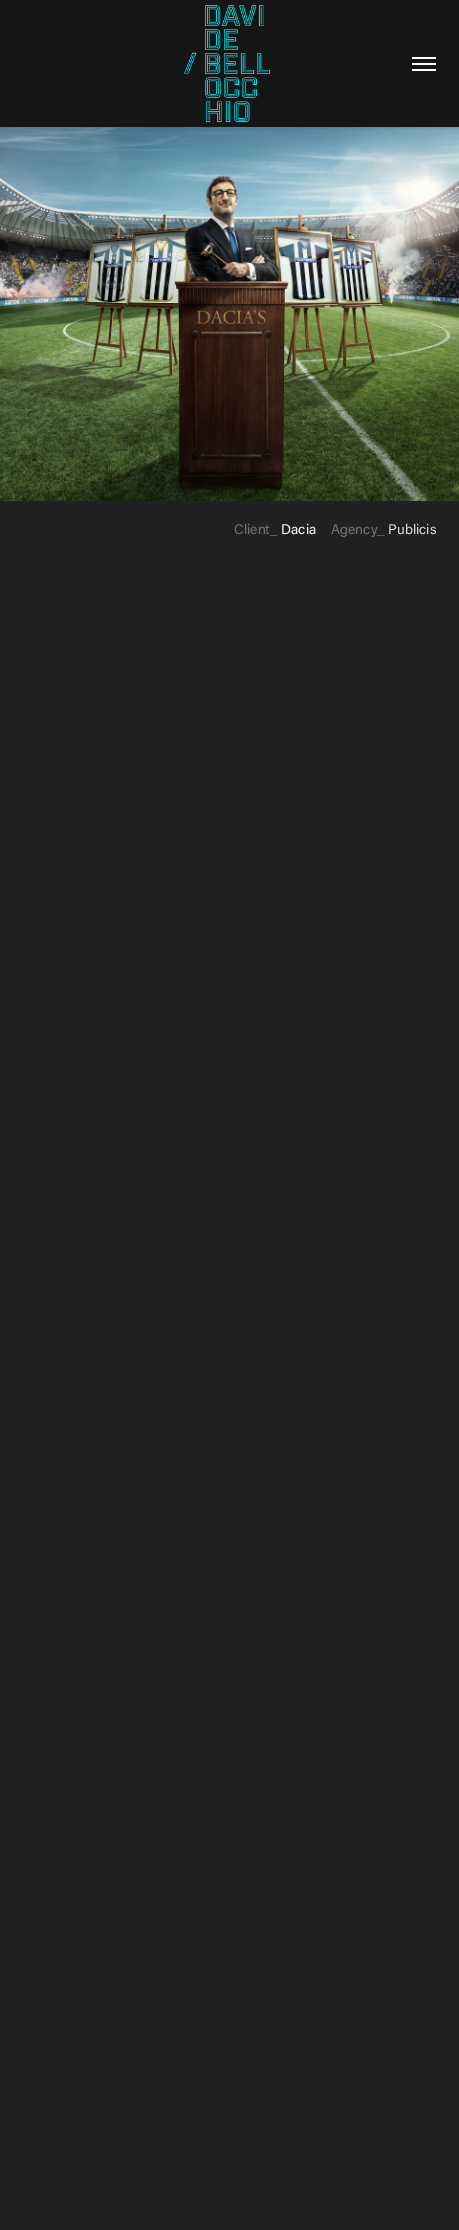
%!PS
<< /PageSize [459 2230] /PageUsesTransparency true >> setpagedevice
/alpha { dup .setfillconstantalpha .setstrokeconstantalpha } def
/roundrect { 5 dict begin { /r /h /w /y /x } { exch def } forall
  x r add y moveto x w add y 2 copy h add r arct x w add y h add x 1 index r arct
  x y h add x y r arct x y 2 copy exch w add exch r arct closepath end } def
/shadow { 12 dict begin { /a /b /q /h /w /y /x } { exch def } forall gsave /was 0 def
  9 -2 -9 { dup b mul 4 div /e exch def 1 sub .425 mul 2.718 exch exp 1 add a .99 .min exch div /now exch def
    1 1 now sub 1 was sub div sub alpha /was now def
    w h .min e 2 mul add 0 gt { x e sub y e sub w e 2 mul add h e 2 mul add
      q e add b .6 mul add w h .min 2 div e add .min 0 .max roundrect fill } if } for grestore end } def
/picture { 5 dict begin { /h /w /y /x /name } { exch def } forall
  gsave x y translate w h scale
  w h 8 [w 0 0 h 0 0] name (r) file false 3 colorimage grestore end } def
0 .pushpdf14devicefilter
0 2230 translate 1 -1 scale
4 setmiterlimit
0.129 setgray
0 0 459 2230 rectfill
(img2.rgb) 0 127 459 374 picture
0 setgray
0 1 459 127 0 1.5 0.1 shadow
0.09 0.086 0.086 setrgbcolor
0 0 459 127 rectfill
(img1.rgb) 184 5 86 118 picture
1 setgray
412 57 24 2 rectfill
412 63 24 2 rectfill
412 69 24 2 rectfill
/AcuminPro-Regular [14 0 0 -14 0 0] selectfont
0.455 setgray
234 534 moveto (Client_) show
1 setgray
281 534 moveto (Dacia) show
0.455 setgray
331 534 moveto (Agency_) show
0.855 0.851 0.851 setrgbcolor
388 534 moveto (Publicis) show
.poppdf14devicefilter showpage
